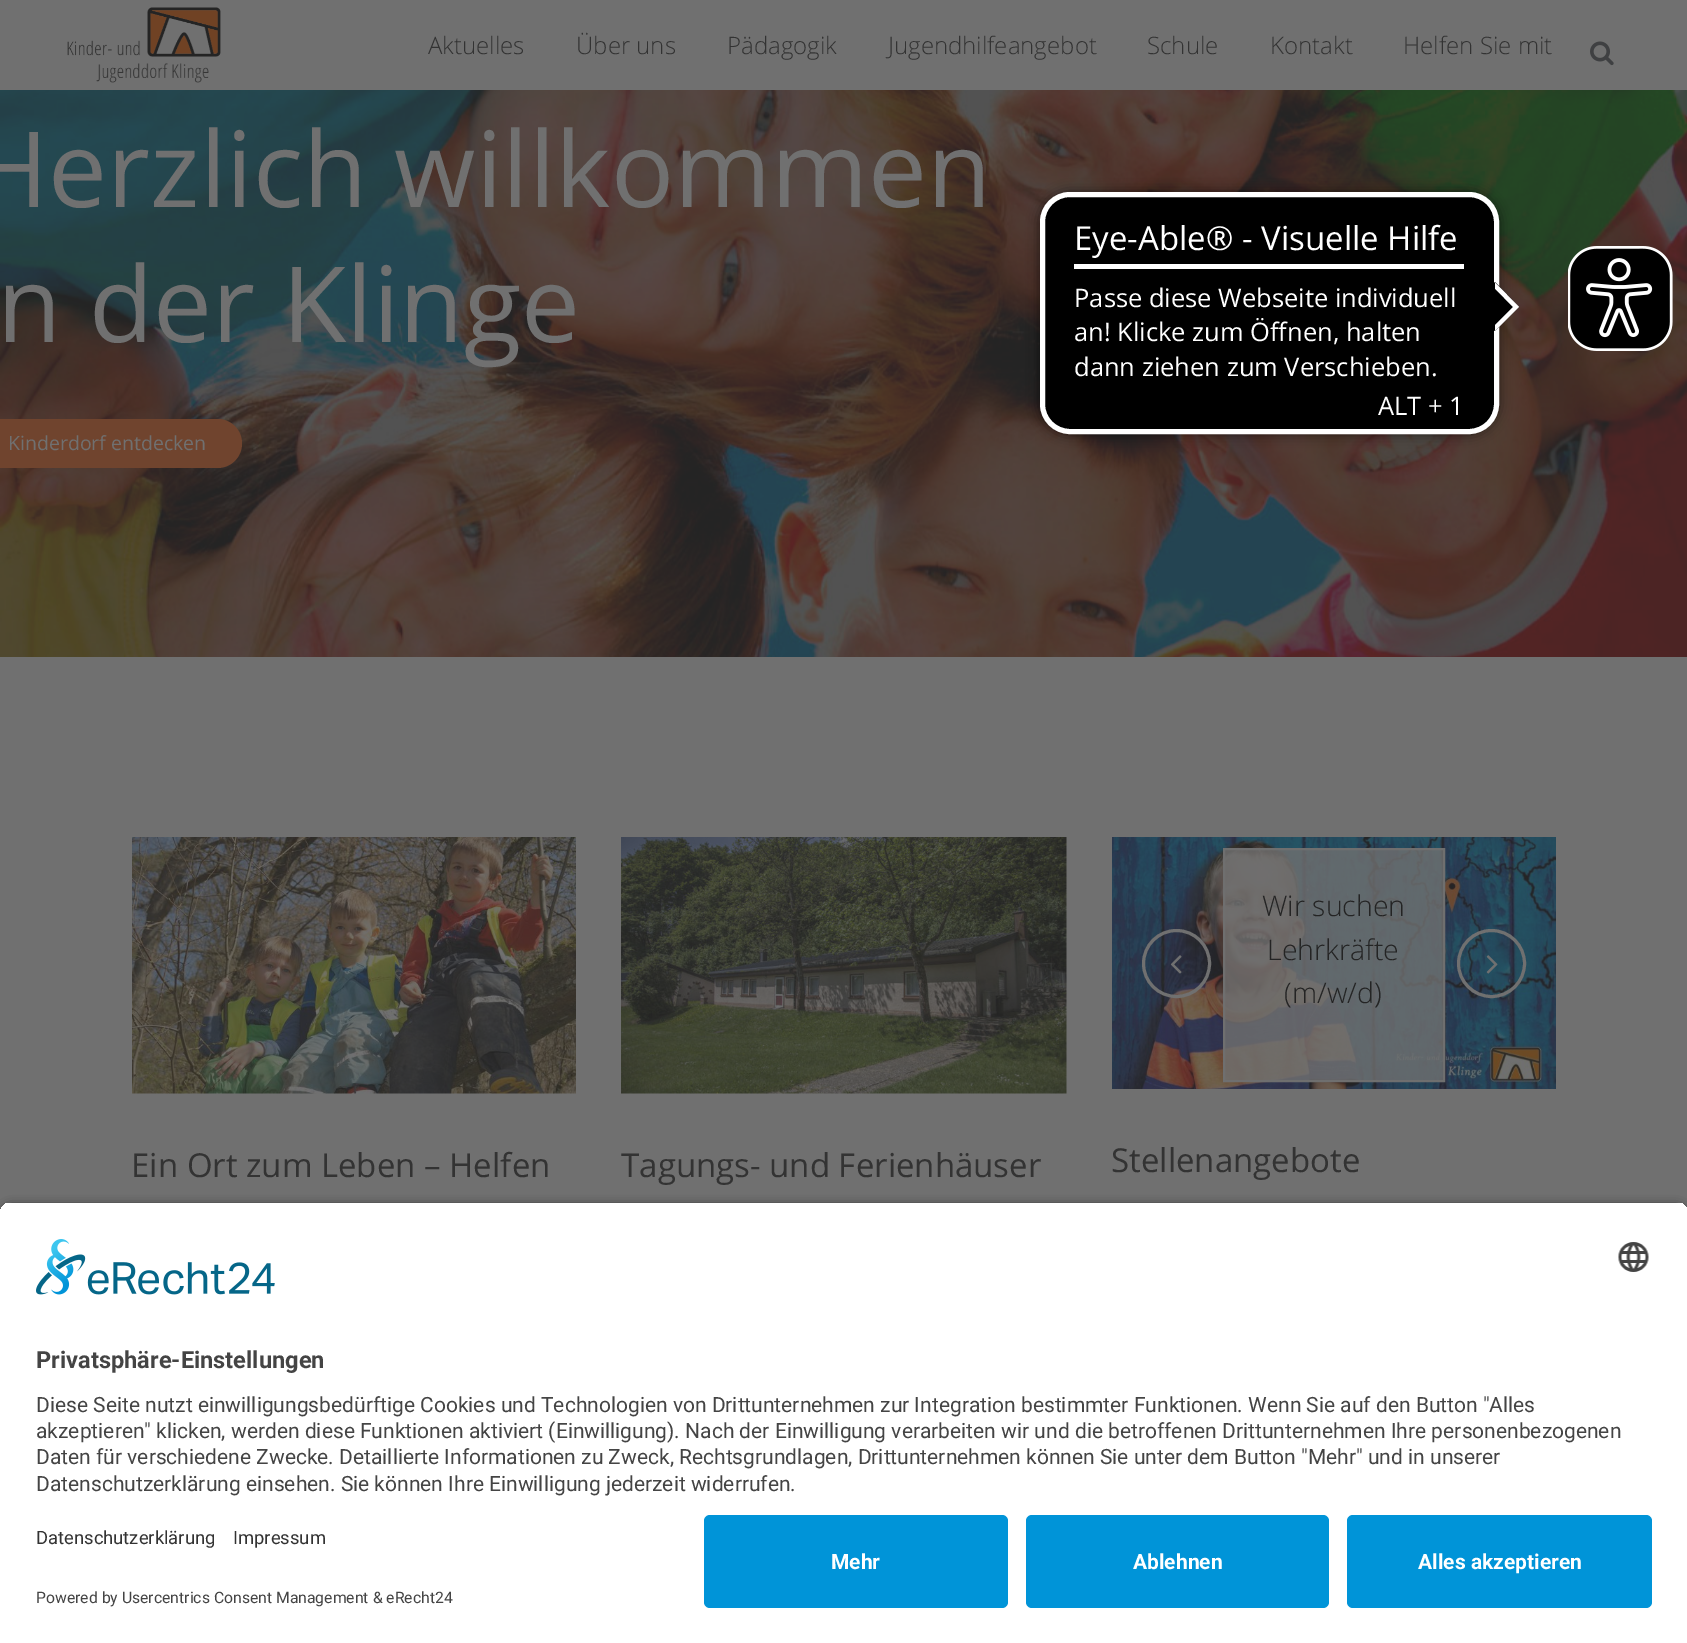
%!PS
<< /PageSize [1687 1643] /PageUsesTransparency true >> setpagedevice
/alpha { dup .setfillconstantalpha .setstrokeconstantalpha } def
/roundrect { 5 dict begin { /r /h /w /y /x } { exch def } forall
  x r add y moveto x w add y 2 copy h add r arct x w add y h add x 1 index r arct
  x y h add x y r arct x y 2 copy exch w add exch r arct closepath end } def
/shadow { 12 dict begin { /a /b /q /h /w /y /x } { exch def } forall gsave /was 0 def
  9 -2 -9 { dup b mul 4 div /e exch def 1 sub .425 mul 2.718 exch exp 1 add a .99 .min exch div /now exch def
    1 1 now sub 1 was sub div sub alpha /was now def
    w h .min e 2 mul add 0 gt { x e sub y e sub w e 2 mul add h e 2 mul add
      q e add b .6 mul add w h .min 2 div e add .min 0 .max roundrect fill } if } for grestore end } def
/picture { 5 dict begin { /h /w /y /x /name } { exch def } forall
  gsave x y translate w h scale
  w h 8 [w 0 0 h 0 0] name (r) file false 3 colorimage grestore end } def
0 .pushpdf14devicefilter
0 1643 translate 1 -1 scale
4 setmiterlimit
0.439 setgray
0 0 1687 1643 rectfill
(img1.rgb) 67 7 154 76 picture
/OpenSans-Light [24 0 0 -24 0 0] selectfont
0.2 setgray
428 54 moveto (Aktuelles) show
576 54 moveto (Über uns) show
727 54 moveto (Pädagogik) show
888 54 moveto (Jugendhilfeangebot) show
1147 54 moveto (Schule) show
1270 54 moveto (Kontakt) show
1403 54 moveto (Helfen Sie mit) show
(img2.rgb) 1590 41 24 25 picture
(img3.rgb) 0 90 1687 567 picture
/OpenSans-Regular [105 0 0 -105 0 0] selectfont
0.439 setgray
-29 207 moveto (Herzlich willkommen) show
-3 342 moveto (n der Klinge) show
0.439 0.267 0.18 setrgbcolor
newpath 0 419 moveto 217.5 419 lineto 231 419 242 430 242 443.5 curveto 242 457 231 468 217.5 468 curveto 0 468 lineto closepath fill
/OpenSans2-Regular [19.5 0 0 -19.5 0 0] selectfont
0.439 setgray
8 450 moveto (Kinderdorf entdecken) show
(img4.rgb) 132 837 444 257 picture
/OpenSans2-Regular [33 0 0 -33 0 0] selectfont
0.2 setgray
131 1177 moveto (Ein Ort zum Leben – Helfen) show
(img5.rgb) 621 837 446 257 picture
621 1177 moveto (Tagungs- und Ferienhäuser) show
(img6.rgb) 1112 837 444 252 picture
0.8 alpha
0.439 setgray
newpath 1224 849 moveto 1444 849 lineto 1444 1081 lineto 1224 1081 lineto closepath fill
1 alpha
0.435 setgray
2 setlinewidth
newpath 1224 849 moveto 1444 849 lineto 1444 1081 lineto 1224 1081 lineto closepath stroke
/OpenSans-Light [28.5 0 0 -28.5 0 0] selectfont
0.141 setgray
1262 916 moveto (Wir suchen) show
1267 960 moveto (Lehrkräfte) show
1284 1003 moveto (\(m/w/d\)) show
0.439 setgray
3 setlinewidth
newpath 1176.5 963.5 33 0 360 arc closepath stroke
(img7.rgb) 1170 955 12 19 picture
newpath 1491.5 963.5 33 0 360 arc closepath stroke
(img8.rgb) 1486 955 12 19 picture
/OpenSans2-Regular [33 0 0 -33 0 0] selectfont
0.2 setgray
1111 1172 moveto (Stellenangebote) show
0 setgray
1038 191 462 244 32 6 0.5 shadow
1042.5 194.5 454 237 27.5 roundrect gsave fill grestore
1 setgray
5 setlinewidth
stroke
1074 264 390 5 rectfill
/OpenSans-Regular [33 0 0 -33 0 0] selectfont
1074 250 moveto (Eye-Able® - Visuelle Hilfe) show
/OpenSans-Regular [25.5 0 0 -25.5 0 0] selectfont
1074 307 moveto (Passe diese Webseite individuell) show
1074 341 moveto (an! Klicke zum Öffnen, halten) show
1074 376 moveto (dann ziehen zum Verschieben.) show
0 setgray
newpath 1495 282 moveto 1519 307 lineto 1495 331 lineto 1470 307 lineto closepath fill
1 setgray
newpath 1495 282.5 moveto 1519 307 lineto 1513 307 lineto 1495 288.5 lineto closepath 1519 307 moveto 1495 331 lineto 1495 325 lineto 1513 307 lineto closepath fill
1378 415 moveto (ALT + 1) show
(img9.rgb) 1568 246 105 105 picture
0 setgray
0 1206 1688 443 12 5 0.8 shadow
gsave
newpath 12 1202 moveto 1676 1202 lineto 1682.5 1202 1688 1207.5 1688 1214 curveto 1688 1503 lineto 0 1503 lineto 0 1214 lineto 0 1207.5 5.5 1202 12 1202 curveto closepath clip newpath
1 setgray
0 1203 1687 300 rectfill
grestore
(img10.rgb) 36 1239 239 56 picture
(img11.rgb) 1618 1242 31 30 picture
/Roboto-Bold [23.6 0 0 -23.6 0 0] selectfont
0.267 setgray
36 1368 moveto (Privatsphäre-Einstellungen) show
/Roboto-Regular [21 0 0 -21 0 0] selectfont
36 1412 moveto (Diese Seite nutzt einwilligungsbedürftige Cookies und Technologien von Drittunternehmen zur Integration bestimmter Funktionen. Wenn Sie auf den Button "Alles) show
36 1438 moveto (akzeptieren" klicken, werden diese Funktionen aktiviert \(Einwilligung\). Nach der Einwilligung verarbeiten wir und die betroffenen Drittunternehmen Ihre personenbezogenen) show
36 1464 moveto (Daten für verschiedene Zwecke. Detaillierte Informationen zu Zweck, Rechtsgrundlagen, Drittunternehmen können Sie unter dem Button "Mehr" und in unserer) show
36 1491 moveto (Datenschutzerklärung einsehen. Sie können Ihre Einwilligung jederzeit widerrufen.) show
1 setgray
0 1503 1687 140 rectfill
/Roboto-Regular [18.4 0 0 -18.4 0 0] selectfont
0.2 setgray
36 1544 moveto (Datenschutzerklärung) show
233 1544 moveto (Impressum) show
/Roboto-Regular [15.75 0 0 -15.75 0 0] selectfont
0.267 setgray
36 1603 moveto (Powered by Usercentrics Consent Management & eRecht24) show
0 0.58 0.847 setrgbcolor
704 1515 304 93 6 roundrect fill
/Roboto-Bold [21 0 0 -21 0 0] selectfont
1 setgray
831 1569 moveto (Mehr) show
0 0.58 0.847 setrgbcolor
1026 1515 303 93 6 roundrect fill
1 setgray
1133 1569 moveto (Ablehnen) show
0 0.58 0.847 setrgbcolor
1347 1515 305 93 6 roundrect fill
1 setgray
1418 1569 moveto (Alles akzeptieren) show
.poppdf14devicefilter showpage
